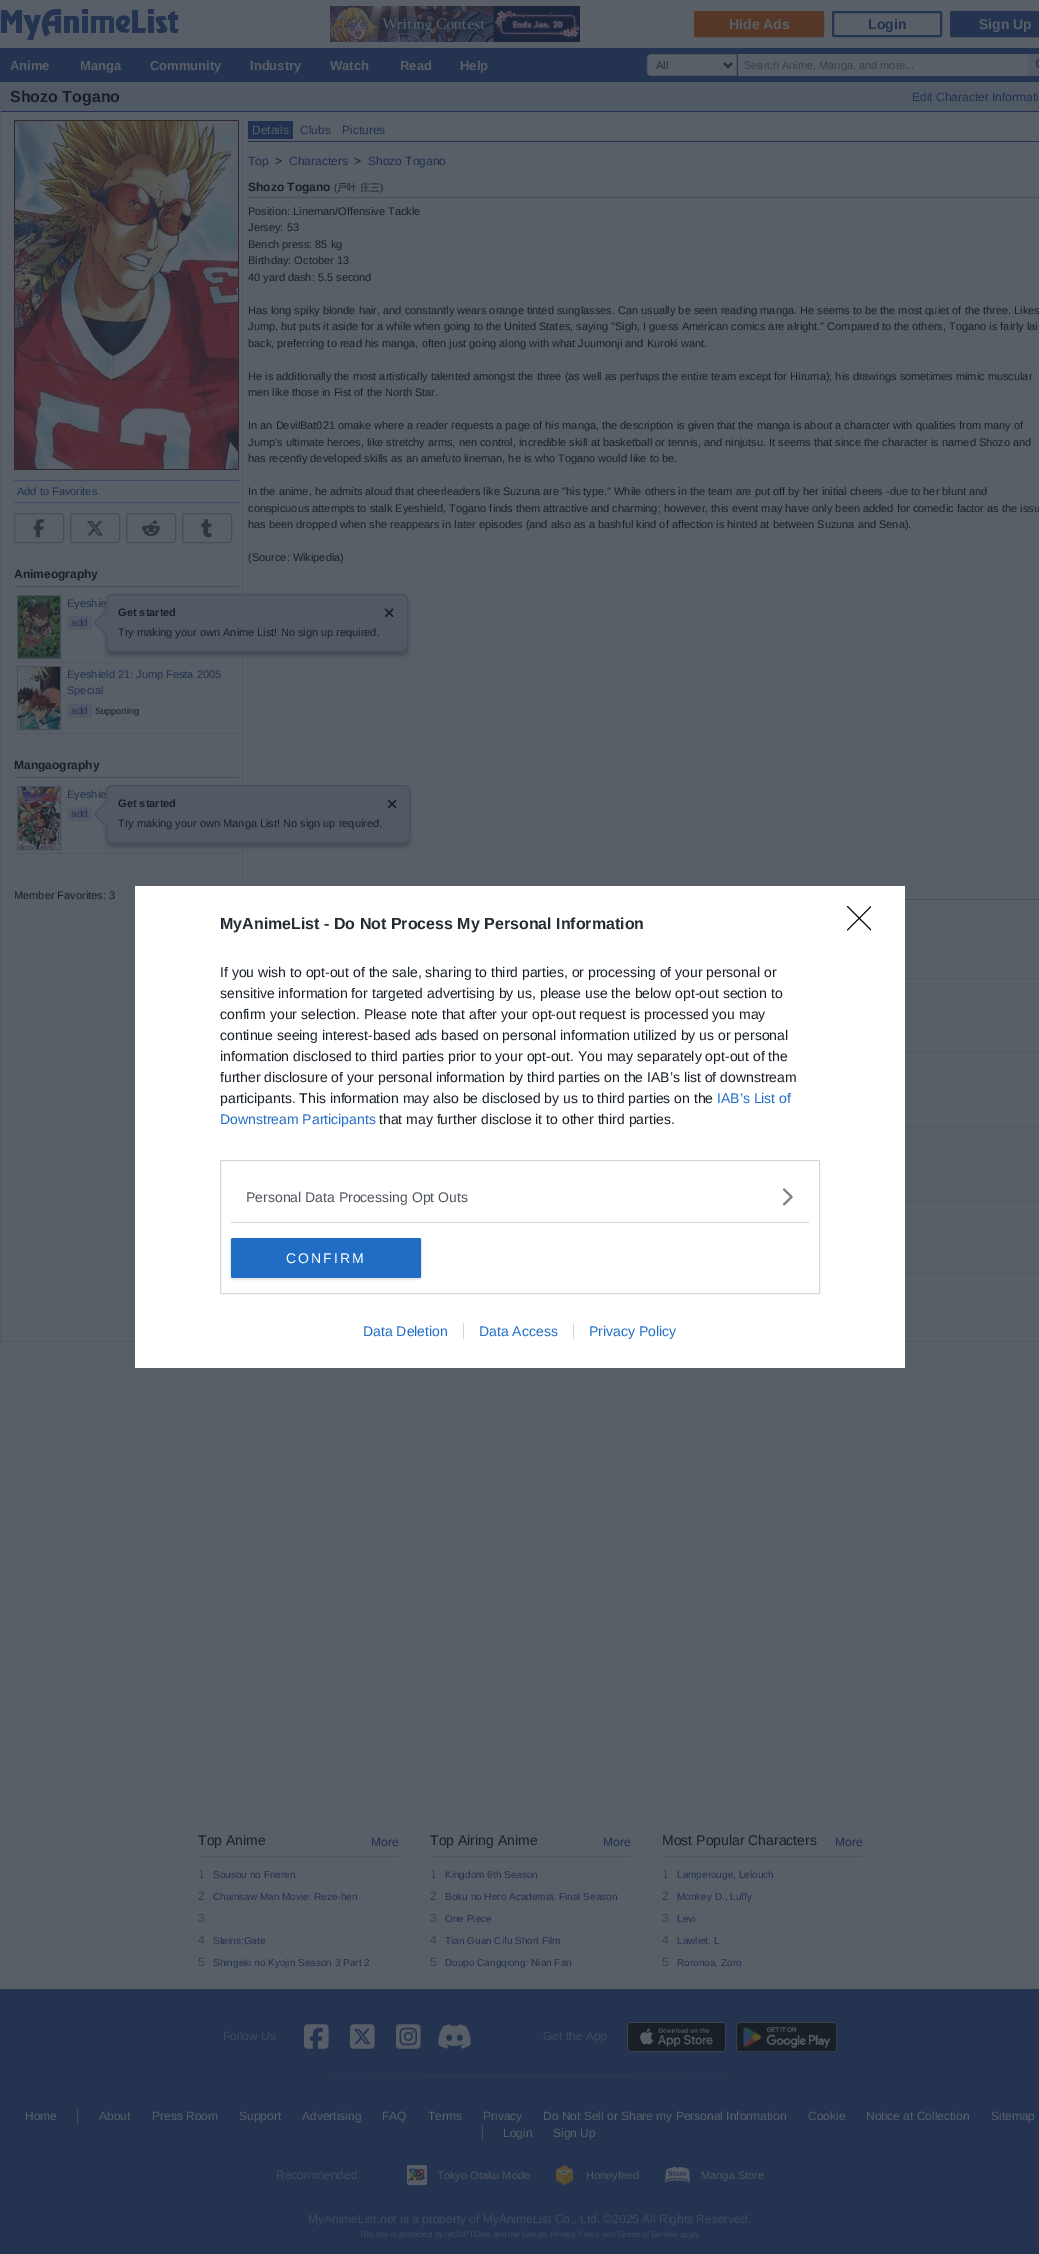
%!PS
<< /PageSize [1039 2254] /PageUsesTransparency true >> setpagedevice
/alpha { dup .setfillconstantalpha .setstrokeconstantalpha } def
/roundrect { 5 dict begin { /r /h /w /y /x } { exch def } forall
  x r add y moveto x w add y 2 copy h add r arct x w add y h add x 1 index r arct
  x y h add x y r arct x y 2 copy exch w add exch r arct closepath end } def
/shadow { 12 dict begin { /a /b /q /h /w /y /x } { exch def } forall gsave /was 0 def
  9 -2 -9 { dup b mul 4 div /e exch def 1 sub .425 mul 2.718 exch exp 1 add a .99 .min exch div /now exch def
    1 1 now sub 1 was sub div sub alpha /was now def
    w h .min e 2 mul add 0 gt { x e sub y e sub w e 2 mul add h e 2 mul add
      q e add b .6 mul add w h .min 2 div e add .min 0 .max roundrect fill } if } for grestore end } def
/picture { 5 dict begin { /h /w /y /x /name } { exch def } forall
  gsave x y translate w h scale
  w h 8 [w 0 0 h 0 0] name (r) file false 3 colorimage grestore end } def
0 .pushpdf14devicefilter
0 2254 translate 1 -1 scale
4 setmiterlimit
0.349 0.373 0.404 setrgbcolor
0 0 1039 2254 rectfill
(img1.rgb) 0 9 179 31 picture
(img2.rgb) 330 6 250 36 picture
0.329 0.216 0.153 setrgbcolor
695 12 128 24 1 roundrect gsave fill grestore
2 setlinewidth
stroke
/LiberationSans-Bold [14 0 0 -14 0 0] selectfont
0.349 0.373 0.404 setrgbcolor
729 29 moveto (Hide Ads) show
0.141 0.2 0.314 setrgbcolor
833 12 108 24 1 roundrect stroke
0.125 0.188 0.306 setrgbcolor
868 29 moveto (Login) show
0.141 0.2 0.314 setrgbcolor
951 12 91 24 1 roundrect gsave fill grestore
stroke
0.349 0.373 0.404 setrgbcolor
979 29 moveto (Sign Up) show
0.141 0.2 0.314 setrgbcolor
0 48 1039 34 rectfill
/LiberationSans-Bold [13 0 0 -13 0 0] selectfont
0.349 0.373 0.404 setrgbcolor
10 70 moveto (Anime) show
80 70 moveto (Manga) show
150 70 moveto (Community) show
250 70 moveto (Industry) show
330 70 moveto (Watch) show
400 70 moveto (Read) show
460 70 moveto (Help) show
newpath 652 54 moveto 737 54 lineto 737 76 lineto 652 76 lineto 649 76 647 74 647 71 curveto 647 59 lineto 647 56 649 54 652 54 curveto closepath fill
0.31 0.333 0.365 setrgbcolor
newpath 647 59 moveto 647 63 646 71 648 74 curveto 648 56 lineto closepath 652 54 moveto 649 55 lineto 736 55 lineto 736 75 lineto 649 75 lineto 650 76 651 76 652 76 curveto 737 76 lineto 737 54 lineto closepath eofill
0.145 0.169 0.204 setrgbcolor
newpath 724 63 moveto 728 67 lineto 732 63 lineto stroke
/LiberationSans-Regular [11 0 0 -11 0 0] selectfont
656 69 moveto (All) show
0.349 0.373 0.404 setrgbcolor
738 54 290 22 rectfill
gsave
740 59 274 12 rectclip
0.224 0.247 0.278 setrgbcolor
744 69 moveto (Search Anime, Manga, and more...) show
grestore
0.318 0.349 0.392 setrgbcolor
1028 54 11 22 rectfill
(img3.rgb) 1036 59 3 9 picture
1 83 1038 28 rectfill
0.322 0.345 0.376 setrgbcolor
0 82 1039 1 rectfill
0.125 0.188 0.306 setrgbcolor
0 111 1039 1 rectfill
0.322 0.345 0.376 setrgbcolor
0 82 1 30 rectfill
/LiberationSans-Bold [16 0 0 -16 0 0] selectfont
0.098 0.122 0.153 setrgbcolor
10 102 moveto (Shozo Togano) show
/LiberationSans-Regular [12 0 0 -12 0 0] selectfont
0.125 0.188 0.306 setrgbcolor
912 101 moveto (Edit Character Informati) show
0.322 0.345 0.376 setrgbcolor
0 1341 1039 1 rectfill
0 112 1 1230 rectfill
0.125 0.188 0.306 setrgbcolor
248 141 791 1 rectfill
248 121 45 18 rectfill
0.349 0.373 0.404 setrgbcolor
252 134 moveto (Details) show
0.125 0.188 0.306 setrgbcolor
300 134 moveto (Clubs) show
342 134 moveto (Pictures) show
248 165 moveto (Top) show
0.098 0.122 0.153 setrgbcolor
275 165 moveto (>) show
0.125 0.188 0.306 setrgbcolor
289 165 moveto (Characters) show
0.098 0.122 0.153 setrgbcolor
354 165 moveto (>) show
0.125 0.188 0.306 setrgbcolor
368 165 moveto (Shozo Togano) show
0.282 0.306 0.341 setrgbcolor
248 197 791 1 rectfill
/LiberationSans-Bold [12 0 0 -12 0 0] selectfont
0.098 0.122 0.153 setrgbcolor
248 191 moveto (Shozo Togano) show
/LiberationSans-Regular [10 0 0 -10 0 0] selectfont
334 191 moveto (\() show
/WenQuanYiZenHei-Medium [10 0 0 -10 0 0] selectfont
337 191 moveto (戸叶 庄三) show
/LiberationSans-Regular [10 0 0 -10 0 0] selectfont
380 191 moveto (\)) show
/LiberationSans-Regular [11 0 0 -11 0 0] selectfont
248 215 moveto (Position: Lineman/Offensive Tackle) show
248 231 moveto (Jersey: 53) show
248 248 moveto (Bench press: 85 kg) show
248 264 moveto (Birthday: October 13) show
248 281 moveto (40 yard dash: 5.5 second) show
248 314 moveto (Has long spiky blonde hair, and constantly wears orange tinted sunglasses. Can usually be seen reading manga. He seems to be the most quiet of the three. Likes) show
248 330 moveto (Jump, but puts it aside for a while when going to the United States, saying "Sigh, I guess American comics are alright." Compared to the others, Togano is fairly lai) show
248 347 moveto (back, preferring to read his manga, often just going along with what Juumonji and Kuroki want.) show
248 380 moveto (He is additionally the most artistically talented amongst the three \(as well as perhaps the entire team except for Hiruma\); his drawings sometimes mimic muscular) show
248 396 moveto (men like those in Fist of the North Star.) show
248 429 moveto (In an DevilBat021 omake where a reader requests a page of his manga, the description is given that the manga is about a character with qualities from many of) show
248 446 moveto (Jump's ultimate heroes, like stretchy arms, nen control, incredible skill at basketball or tennis, and ninjutsu. It seems that since the character is named Shozo and) show
248 462 moveto (has recently developed skills as an amefuto lineman, he is who Togano would like to be.) show
248 495 moveto (In the anime, he admits aloud that cheerleaders like Suzuna are "his type." While others in the team are put off by her initial cheers -due to her blunt and) show
248 512 moveto (conspicuous attempts to stalk Eyeshield, Togano finds them attractive and charming; however, this event may have only been added for comedic factor as the issu) show
248 528 moveto (has been dropped when she reappears in later episodes \(and also as a bashful kind of affection is hinted at between Suzuna and Sena\).) show
248 561 moveto (\(Source: Wikipedia\)) show
0.282 0.306 0.341 setrgbcolor
905 899 134 1 rectfill
0.322 0.345 0.376 setrgbcolor
905 978 134 1 rectfill
905 1052 134 1 rectfill
905 1126 134 1 rectfill
905 1201 134 1 rectfill
905 1273 134 1 rectfill
242 117 1 769 rectfill
(img4.rgb) 14 120 225 350 picture
0.239 0.294 0.388 setrgbcolor
14 480 225 1 rectfill
14 502 225 1 rectfill
0.125 0.188 0.306 setrgbcolor
17 495 moveto (Add to Favorites) show
0.282 0.306 0.341 setrgbcolor
1 setlinewidth
14.5 513.5 49 29 2.5 roundrect stroke
(img5.rgb) 33 519 11 19 picture
70.5 513.5 49 29 2.5 roundrect stroke
(img6.rgb) 87 520 16 16 picture
126.5 513.5 49 29 2.5 roundrect stroke
(img7.rgb) 142 520 18 17 picture
182.5 513.5 49 29 2.5 roundrect stroke
(img8.rgb) 201 519 11 19 picture
14 586 225 1 rectfill
/LiberationSans-Bold [12 0 0 -12 0 0] selectfont
0.098 0.122 0.153 setrgbcolor
14 578 moveto (Animeography) show
0.322 0.345 0.376 setrgbcolor
14 662 225 1 rectfill
0.282 0.306 0.341 setrgbcolor
17.5 595.5 43 63 rectstroke
(img9.rgb) 18 596 42 62 picture
/LiberationSans-Regular [11 0 0 -11 0 0] selectfont
0.125 0.188 0.306 setrgbcolor
67 607 moveto (Eyeshie) show
0.318 0.349 0.392 setrgbcolor
67 616 25 13 rectfill
0.322 0.345 0.376 setrgbcolor
67 629 25 1 rectfill
/LiberationSans-Regular [10 0 0 -10 0 0] selectfont
0.125 0.188 0.306 setrgbcolor
71 626 moveto (add) show
0.322 0.345 0.376 setrgbcolor
14 733 225 1 rectfill
0.282 0.306 0.341 setrgbcolor
17.5 666.5 43 63 rectstroke
(img10.rgb) 18 667 42 62 picture
/LiberationSans-Regular [11 0 0 -11 0 0] selectfont
0.125 0.188 0.306 setrgbcolor
67 678 moveto (Eyeshield 21: Jump Festa 2005) show
67 694 moveto (Special) show
0.318 0.349 0.392 setrgbcolor
67 704 25 13 rectfill
0.322 0.345 0.376 setrgbcolor
67 717 25 1 rectfill
/LiberationSans-Regular [10 0 0 -10 0 0] selectfont
0.125 0.188 0.306 setrgbcolor
71 714 moveto (add) show
/LiberationSans-Regular [9 0 0 -9 0 0] selectfont
0.098 0.122 0.153 setrgbcolor
95 714 moveto (Supporting) show
0.282 0.306 0.341 setrgbcolor
14 777 225 1 rectfill
/LiberationSans-Bold [12 0 0 -12 0 0] selectfont
0.098 0.122 0.153 setrgbcolor
14 769 moveto (Mangaography) show
0.322 0.345 0.376 setrgbcolor
14 853 225 1 rectfill
0.282 0.306 0.341 setrgbcolor
17.5 786.5 43 63 rectstroke
(img11.rgb) 18 787 42 62 picture
/LiberationSans-Regular [11 0 0 -11 0 0] selectfont
0.125 0.188 0.306 setrgbcolor
67 798 moveto (Eyeshie) show
0.318 0.349 0.392 setrgbcolor
67 807 25 13 rectfill
0.322 0.345 0.376 setrgbcolor
67 820 25 1 rectfill
/LiberationSans-Regular [10 0 0 -10 0 0] selectfont
0.125 0.188 0.306 setrgbcolor
71 817 moveto (add) show
/LiberationSans-Regular [11 0 0 -11 0 0] selectfont
0.098 0.122 0.153 setrgbcolor
14 899 moveto (Member Favorites: 3) show
106 598 302 58 6 2 0.3 shadow
0.318 0.349 0.392 setrgbcolor
106.5 594.5 301 57 5.5 roundrect gsave fill grestore
0.282 0.306 0.341 setrgbcolor
stroke
newpath 107 609 moveto 107 637 lineto 93 623 lineto closepath fill
/LiberationSans-Bold [11 0 0 -11 0 0] selectfont
0.098 0.122 0.153 setrgbcolor
118 616 moveto (Get started) show
(img12.rgb) 384 608 10 10 picture
0.318 0.349 0.392 setrgbcolor
newpath 107 611 moveto 107 635 lineto 95 623 lineto closepath fill
/LiberationSans-Regular [11 0 0 -11 0 0] selectfont
0.098 0.122 0.153 setrgbcolor
118 636 moveto (Try making your own Anime List! No sign up required.) show
106 789 304 58 6 2 0.3 shadow
0.318 0.349 0.392 setrgbcolor
106.5 785.5 303 57 5.5 roundrect gsave fill grestore
0.282 0.306 0.341 setrgbcolor
stroke
newpath 107 800 moveto 107 828 lineto 93 814 lineto closepath fill
/LiberationSans-Bold [11 0 0 -11 0 0] selectfont
0.098 0.122 0.153 setrgbcolor
118 807 moveto (Get started) show
(img12.rgb) 387 799 10 10 picture
0.318 0.349 0.392 setrgbcolor
newpath 107 802 moveto 107 826 lineto 95 814 lineto closepath fill
/LiberationSans-Regular [11 0 0 -11 0 0] selectfont
0.098 0.122 0.153 setrgbcolor
118 827 moveto (Try making your own Manga List! No sign up required.) show
1 setgray
135 886 770 482 rectfill
/LiberationSans-Bold [16 0 0 -16 0 0] selectfont
0.145 0.169 0.204 setrgbcolor
220 929 moveto (MyAnimeList - Do Not Process My Personal Information) show
/LiberationSans-Regular [14 0 0 -14 0 0] selectfont
0.098 0.122 0.153 setrgbcolor
220 977 moveto (If you wish to opt-out of the sale, sharing to third parties, or processing of your personal or) show
220 998 moveto (sensitive information for targeted advertising by us, please use the below opt-out section to) show
220 1019 moveto (confirm your selection. Please note that after your opt-out request is processed you may) show
220 1040 moveto (continue seeing interest-based ads based on personal information utilized by us or personal) show
220 1061 moveto (information disclosed to third parties prior to your opt-out. You may separately opt-out of the) show
220 1082 moveto (further disclosure of your personal information by third parties on the IAB’s list of downstream) show
220 1103 moveto (participants. This information may also be disclosed by us to third parties on the) show
0.125 0.427 0.773 setrgbcolor
717 1103 moveto (IAB’s List of) show
220 1124 moveto (Downstream Participants) show
0.098 0.122 0.153 setrgbcolor
379 1124 moveto (that may further disclose it to other third parties.) show
0.847 setgray
220.5 1160.5 599 133 rectstroke
231 1222 578 1 rectfill
0.31 0.333 0.365 setrgbcolor
246 1202 moveto (Personal Data Processing Opt Outs) show
(img13.rgb) 782 1188 11 18 picture
0 setgray
230 1238 192 42 3 0.5 0.1 shadow
0.125 0.427 0.773 setrgbcolor
231 1238 190 40 2 roundrect fill
1 setgray
286 1263 moveto 2 0 (CONFIRM) ashow
gsave
847 906 24 25 rectclip
0 setgray
1 setlinecap
1 setlinejoin
newpath 847.5 906.5 moveto 871 930 lineto 871 906.5 moveto 847.5 930 lineto stroke
grestore
0.125 0.427 0.773 setrgbcolor
363 1336 moveto (Data Deletion) show
479 1336 moveto (Data Access) show
0.847 setgray
463 1323 1 16 rectfill
0.125 0.427 0.773 setrgbcolor
589 1336 moveto (Privacy Policy) show
0.847 setgray
573 1323 1 16 rectfill
0.314 0.337 0.373 setrgbcolor
198 1856 200 1 rectfill
0.098 0.122 0.153 setrgbcolor
198 1845 moveto (Top Anime) show
/LiberationSans-Regular [12 0 0 -12 0 0] selectfont
0.125 0.188 0.306 setrgbcolor
371 1846 moveto (More) show
0.224 0.247 0.278 setrgbcolor
198 1878 moveto (1) show
/LiberationSans-Regular [10 0 0 -10 0 0] selectfont
0.125 0.188 0.306 setrgbcolor
213 1878 moveto (Sousou no Frieren) show
/LiberationSans-Regular [12 0 0 -12 0 0] selectfont
0.224 0.247 0.278 setrgbcolor
198 1900 moveto (2) show
/LiberationSans-Regular [10 0 0 -10 0 0] selectfont
0.125 0.188 0.306 setrgbcolor
213 1900 moveto (Chainsaw Man Movie: Reze-hen) show
/LiberationSans-Regular [12 0 0 -12 0 0] selectfont
0.224 0.247 0.278 setrgbcolor
198 1922 moveto (3) show
198 1944 moveto (4) show
/LiberationSans-Regular [10 0 0 -10 0 0] selectfont
0.125 0.188 0.306 setrgbcolor
213 1944 moveto (Steins;Gate) show
/LiberationSans-Regular [12 0 0 -12 0 0] selectfont
0.224 0.247 0.278 setrgbcolor
198 1966 moveto (5) show
/LiberationSans-Regular [10 0 0 -10 0 0] selectfont
0.125 0.188 0.306 setrgbcolor
213 1966 moveto (Shingeki no Kyojin Season 3 Part 2) show
0.314 0.337 0.373 setrgbcolor
430 1856 200 1 rectfill
/LiberationSans-Regular [14 0 0 -14 0 0] selectfont
0.098 0.122 0.153 setrgbcolor
430 1845 moveto (Top Airing Anime) show
/LiberationSans-Regular [12 0 0 -12 0 0] selectfont
0.125 0.188 0.306 setrgbcolor
603 1846 moveto (More) show
0.224 0.247 0.278 setrgbcolor
430 1878 moveto (1) show
/LiberationSans-Regular [10 0 0 -10 0 0] selectfont
0.125 0.188 0.306 setrgbcolor
445 1878 moveto (Kingdom 6th Season) show
/LiberationSans-Regular [12 0 0 -12 0 0] selectfont
0.224 0.247 0.278 setrgbcolor
430 1900 moveto (2) show
/LiberationSans-Regular [10 0 0 -10 0 0] selectfont
0.125 0.188 0.306 setrgbcolor
445 1900 moveto (Boku no Hero Academia: Final Season) show
/LiberationSans-Regular [12 0 0 -12 0 0] selectfont
0.224 0.247 0.278 setrgbcolor
430 1922 moveto (3) show
/LiberationSans-Regular [10 0 0 -10 0 0] selectfont
0.125 0.188 0.306 setrgbcolor
445 1922 moveto (One Piece) show
/LiberationSans-Regular [12 0 0 -12 0 0] selectfont
0.224 0.247 0.278 setrgbcolor
430 1944 moveto (4) show
/LiberationSans-Regular [10 0 0 -10 0 0] selectfont
0.125 0.188 0.306 setrgbcolor
445 1944 moveto (Tian Guan Cifu Short Film) show
/LiberationSans-Regular [12 0 0 -12 0 0] selectfont
0.224 0.247 0.278 setrgbcolor
430 1966 moveto (5) show
/LiberationSans-Regular [10 0 0 -10 0 0] selectfont
0.125 0.188 0.306 setrgbcolor
445 1966 moveto (Doupo Cangqiong: Nian Fan) show
0.314 0.337 0.373 setrgbcolor
662 1856 200 1 rectfill
/LiberationSans-Regular [14 0 0 -14 0 0] selectfont
0.098 0.122 0.153 setrgbcolor
662 1845 moveto (Most Popular Characters) show
/LiberationSans-Regular [12 0 0 -12 0 0] selectfont
0.125 0.188 0.306 setrgbcolor
835 1846 moveto (More) show
0.224 0.247 0.278 setrgbcolor
662 1878 moveto (1) show
/LiberationSans-Regular [10 0 0 -10 0 0] selectfont
0.125 0.188 0.306 setrgbcolor
677 1878 moveto (Lamperouge, Lelouch) show
/LiberationSans-Regular [12 0 0 -12 0 0] selectfont
0.224 0.247 0.278 setrgbcolor
662 1900 moveto (2) show
/LiberationSans-Regular [10 0 0 -10 0 0] selectfont
0.125 0.188 0.306 setrgbcolor
677 1900 moveto (Monkey D., Luffy) show
/LiberationSans-Regular [12 0 0 -12 0 0] selectfont
0.224 0.247 0.278 setrgbcolor
662 1922 moveto (3) show
/LiberationSans-Regular [10 0 0 -10 0 0] selectfont
0.125 0.188 0.306 setrgbcolor
677 1922 moveto (Levi) show
/LiberationSans-Regular [12 0 0 -12 0 0] selectfont
0.224 0.247 0.278 setrgbcolor
662 1944 moveto (4) show
/LiberationSans-Regular [10 0 0 -10 0 0] selectfont
0.125 0.188 0.306 setrgbcolor
677 1944 moveto (Lawliet, L) show
/LiberationSans-Regular [12 0 0 -12 0 0] selectfont
0.224 0.247 0.278 setrgbcolor
662 1966 moveto (5) show
/LiberationSans-Regular [10 0 0 -10 0 0] selectfont
0.125 0.188 0.306 setrgbcolor
677 1966 moveto (Roronoa, Zoro) show
0.141 0.2 0.314 setrgbcolor
0 1989 1039 265 rectfill
/LiberationSans-Regular [12 0 0 -12 0 0] selectfont
0.251 0.29 0.365 setrgbcolor
223 2040 moveto (Follow Us) show
(img14.rgb) 304 2024 25 25 picture
(img15.rgb) 350 2024 25 25 picture
(img16.rgb) 396 2024 25 25 picture
(img17.rgb) 438 2024 33 25 picture
543 2040 moveto (Get the App) show
(img18.rgb) 627 2022 99 30 picture
(img19.rgb) 736 2022 101 30 picture
(img20.rgb) 210 2076 640 1 picture
77 2108 1 17 rectfill
0.349 0.373 0.404 setrgbcolor
25 2120 moveto (Home) show
99 2120 moveto (About) show
152 2120 moveto (Press Room) show
239 2120 moveto (Support) show
302 2120 moveto (Advertising) show
382 2120 moveto (FAQ) show
428 2120 moveto (Terms) show
483 2120 moveto (Privacy) show
543 2120 moveto (Do Not Sell or Share my Personal Information) show
808 2120 moveto (Cookie) show
866 2120 moveto (Notice at Collection) show
991 2120 moveto (Sitemap) show
0.251 0.29 0.365 setrgbcolor
482 2125 1 16 rectfill
0.349 0.373 0.404 setrgbcolor
503 2137 moveto (Login) show
553 2137 moveto (Sign Up) show
0.251 0.29 0.365 setrgbcolor
276 2179 moveto (Recommended) show
(img21.rgb) 407 2165 20 20 picture
/LiberationSans-Regular [11 0 0 -11 0 0] selectfont
0.31 0.333 0.365 setrgbcolor
437 2179 moveto (Tokyo Otaku Mode) show
(img22.rgb) 556 2165 17 20 picture
586 2179 moveto (Honeyfeed) show
(img23.rgb) 665 2167 25 16 picture
701 2179 moveto (Manga Store) show
/LiberationSans-Regular [12 0 0 -12 0 0] selectfont
0.251 0.29 0.365 setrgbcolor
308 2223 moveto (MyAnimeList.net is a property of MyAnimeList Co., Ltd. ©2025 All Rights Reserved.) show
/LiberationSans-Regular [8 0 0 -8 0 0] selectfont
359 2237 moveto (This site is protected by reCAPTCHA and the Google Privacy Policy and Terms of Service apply.) show
.poppdf14devicefilter showpage
